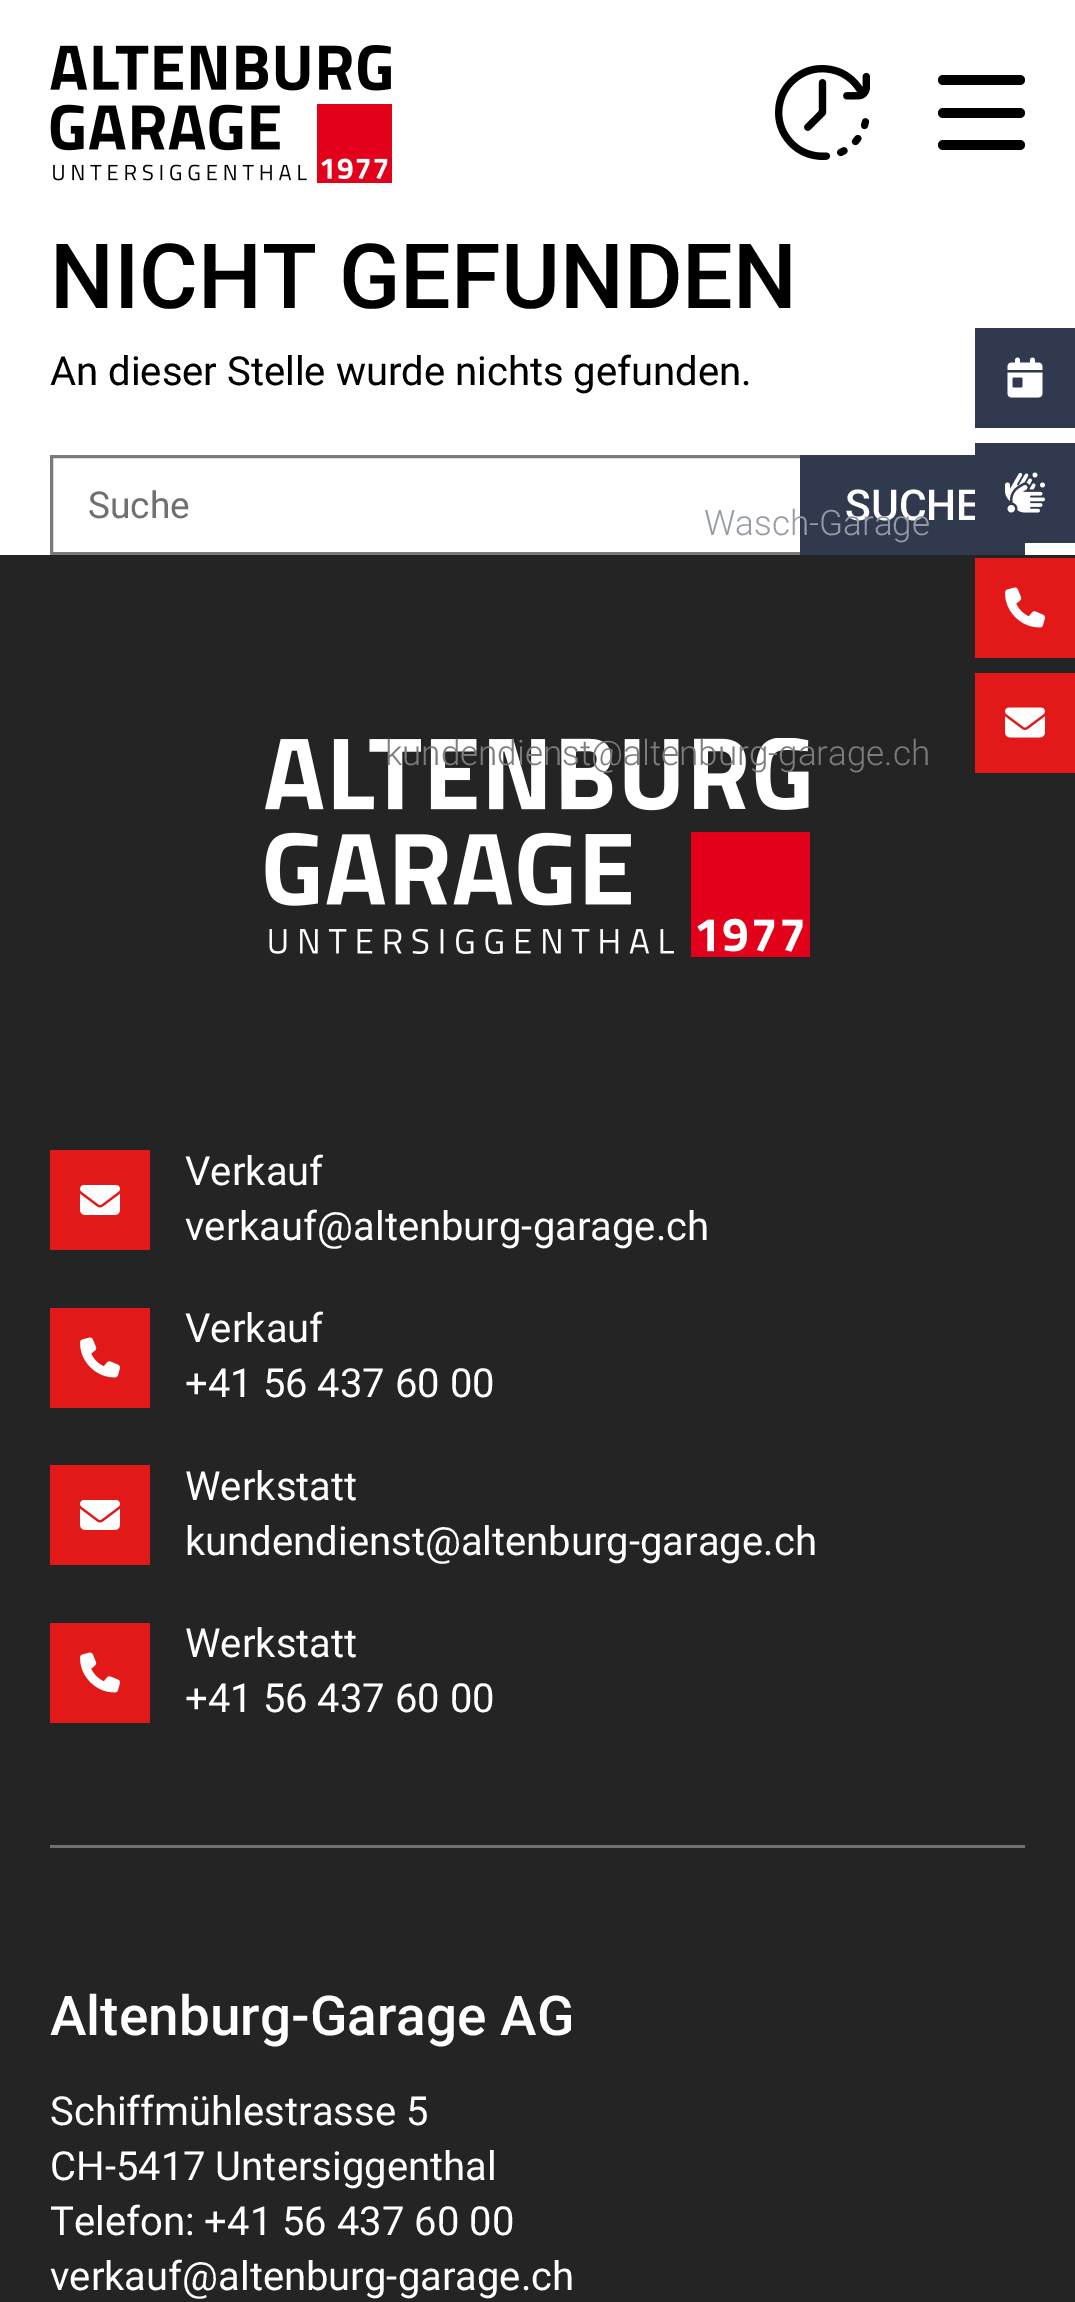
%!PS
<< /PageSize [1075 2302] >> setpagedevice
/roundrect { 5 dict begin { /r /h /w /y /x } { exch def } forall
  x r add y moveto x w add y 2 copy h add r arct x w add y h add x 1 index r arct
  x y h add x y r arct x y 2 copy exch w add exch r arct closepath end } def
/picture { 5 dict begin { /h /w /y /x /name } { exch def } forall
  gsave x y translate w h scale
  w h 8 [w 0 0 h 0 0] name (r) file false 3 colorimage grestore end } def
0 2302 translate 1 -1 scale
4 setmiterlimit
1 setgray
0 0 1075 2302 rectfill
(img1.rgb) 50 45 342 138 picture
(img2.rgb) 775 65 95 95 picture
0 setgray
938 75 87 10 5 roundrect fill
938 108 87 10 5 roundrect fill
938 140 87 10 5 roundrect fill
/Roboto-Medium [90 0 0 -90 0 0] selectfont
50 308 moveto (NICHT GEFUNDEN) show
/Roboto-Regular [40 0 0 -40 0 0] selectfont
50 385 moveto (An dieser Stelle wurde nichts gefunden.) show
0.482 setgray
3 setlinewidth
51.5 456.5 750 97 rectstroke
/Roboto-Regular [37 0 0 -37 0 0] selectfont
0.439 setgray
88 518 moveto (Suche) show
0.192 0.224 0.306 setrgbcolor
800 455 225 100 rectfill
/Roboto-Medium [42.5 0 0 -42.5 0 0] selectfont
1 setgray
845 520 moveto (SUCHE) show
0.192 0.224 0.306 setrgbcolor
975 328 100 100 rectfill
(img3.rgb) 1007 357 36 41 picture
975 443 100 100 rectfill
(img4.rgb) 1005 472 40 41 picture
/Roboto-Light [35 0 0 -35 0 0] selectfont
0.588 0.604 0.643 setrgbcolor
704 535 moveto (Wasch-Garage) show
0.141 setgray
0 555 1075 1747 rectfill
0.89 0.094 0.094 setrgbcolor
975 558 100 100 rectfill
(img5.rgb) 1005 587 40 41 picture
975 673 100 100 rectfill
(img6.rgb) 1005 707 40 31 picture
(img7.rgb) 265 738 545 219 picture
0.486 setgray
385 765 moveto (kundendienst@altenburg-garage.ch) show
0.439 setgray
50 1845 975 3 rectfill
0.89 0.094 0.094 setrgbcolor
50 1150 100 100 rectfill
(img8.rgb) 80 1185 40 30 picture
/Roboto-Regular [40 0 0 -40 0 0] selectfont
1 setgray
185 1185 moveto (Verkauf) show
185 1240 moveto (verkauf@altenburg-garage.ch) show
0.89 0.094 0.094 setrgbcolor
50 1308 100 100 rectfill
(img5.rgb) 80 1337 40 41 picture
1 setgray
185 1342 moveto (Verkauf) show
185 1397 moveto (+41 56 437 60 00) show
0.89 0.094 0.094 setrgbcolor
50 1465 100 100 rectfill
(img8.rgb) 80 1500 40 30 picture
1 setgray
185 1500 moveto (Werkstatt) show
185 1555 moveto (kundendienst@altenburg-garage.ch) show
0.89 0.094 0.094 setrgbcolor
50 1623 100 100 rectfill
(img5.rgb) 80 1652 40 41 picture
1 setgray
185 1657 moveto (Werkstatt) show
185 1712 moveto (+41 56 437 60 00) show
/Roboto-Medium [55 0 0 -55 0 0] selectfont
50 2035 moveto (Altenburg-Garage AG) show
/Roboto-Regular [40 0 0 -40 0 0] selectfont
50 2125 moveto (Schiffmühlestrasse 5) show
50 2180 moveto (CH-5417 Untersiggenthal) show
50 2235 moveto (Telefon: +41 56 437 60 00) show
50 2290 moveto (verkauf@altenburg-garage.ch) show
showpage
